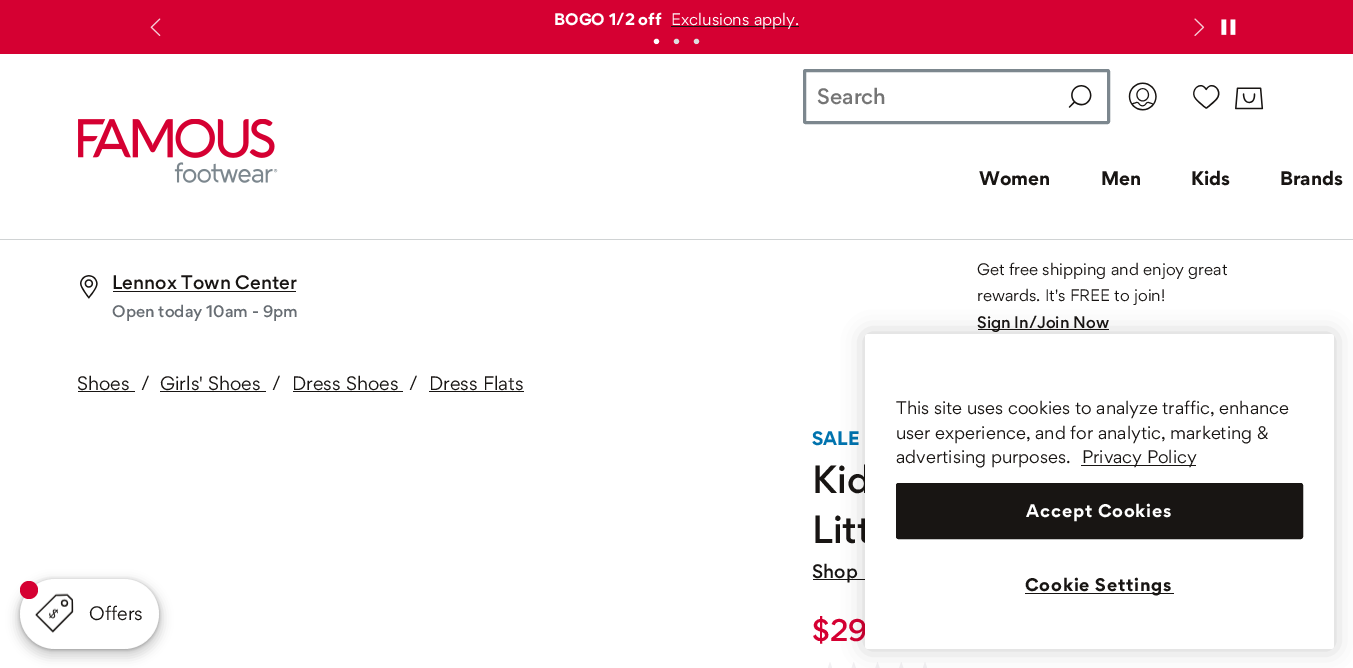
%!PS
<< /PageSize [1353 668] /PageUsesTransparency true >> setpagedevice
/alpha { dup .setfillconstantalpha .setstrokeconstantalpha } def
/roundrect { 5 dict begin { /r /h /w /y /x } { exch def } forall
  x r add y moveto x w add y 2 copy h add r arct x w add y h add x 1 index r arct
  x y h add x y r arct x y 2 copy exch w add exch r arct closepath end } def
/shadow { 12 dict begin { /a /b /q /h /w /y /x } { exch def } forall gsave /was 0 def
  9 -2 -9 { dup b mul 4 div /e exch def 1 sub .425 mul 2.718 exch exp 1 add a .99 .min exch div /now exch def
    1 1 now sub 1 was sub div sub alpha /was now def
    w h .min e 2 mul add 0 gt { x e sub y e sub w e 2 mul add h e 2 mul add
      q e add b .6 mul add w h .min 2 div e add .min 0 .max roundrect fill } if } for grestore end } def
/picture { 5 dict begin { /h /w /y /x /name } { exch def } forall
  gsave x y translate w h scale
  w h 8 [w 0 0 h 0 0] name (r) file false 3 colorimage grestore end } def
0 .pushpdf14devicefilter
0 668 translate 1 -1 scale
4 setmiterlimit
1 setgray
0 0 1353 668 rectfill
0.835 0 0.196 setrgbcolor
0 0 1353 54 rectfill
/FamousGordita-Bold [15 0 0 -15 0 0] selectfont
1 setgray
554 25 moveto (BOGO 1/2 off) show
0.094 0.082 0.075 setrgbcolor
671 26 128 1 rectfill
/FamousGordita-Regular [15 0 0 -15 0 0] selectfont
1 setgray
671 25 moveto (Exclusions apply.) show
(img1.rgb) 1221 19 15 16 picture
(img2.rgb) 150 18 11 18 picture
(img3.rgb) 1194 18 11 18 picture
/LiberationSans-Regular [20 0 0 -20 0 0] selectfont
653 48 moveto (•) show
0.867 setgray
673 48 moveto (•) show
693 48 moveto (•) show
(img4.rgb) 78 119 200 64 picture
0.486 0.529 0.557 setrgbcolor
3 setlinewidth
804.5 70.5 304 52 1 roundrect stroke
/FamousGordita-Medium [20 0 0 -20 0 0] selectfont
0.459 setgray
817 104 moveto (Search) show
(img5.rgb) 1068 85 24 23 picture
(img6.rgb) 1128 82 29 29 picture
(img7.rgb) 1193 85 27 24 picture
(img8.rgb) 1235 87 29 23 picture
/FamousGordita-Bold [17.5 0 0 -17.5 0 0] selectfont
0.094 0.082 0.075 setrgbcolor
979 185 moveto (Women) show
1101 185 moveto (Men) show
1191 185 moveto (Kids) show
1280 185 moveto (Brands) show
0.816 0.827 0.831 setrgbcolor
0 239 1353 1 rectfill
(img9.rgb) 80 275 18 24 picture
/FamousGordita-Medium [17.5 0 0 -17.5 0 0] selectfont
0.094 0.082 0.075 setrgbcolor
112 289 moveto (Lennox Town Center) show
113 291 183 1 rectfill
/FamousGordita-Medium [15 0 0 -15 0 0] selectfont
0.404 0.427 0.451 setrgbcolor
112 317 moveto (Open today 10am - 9pm) show
/FamousGordita-Regular [15 0 0 -15 0 0] selectfont
0.094 0.082 0.075 setrgbcolor
977 275 moveto (Get free shipping and enjoy great) show
977 301 moveto (rewards. It's FREE to join!) show
978 329 131 1 rectfill
/FamousGordita-Medium [15 0 0 -15 0 0] selectfont
977 328 moveto (Sign In/Join Now) show
gsave
newpath 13 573 moveto 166 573 lineto 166 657 lineto 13 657 lineto closepath 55 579 moveto 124 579 lineto 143.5 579 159 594.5 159 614 curveto 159 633.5 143.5 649 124 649 curveto 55 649 lineto 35.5 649 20 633.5 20 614 curveto 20 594.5 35.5 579 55 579 curveto closepath eoclip newpath
0 setgray
20 580 139 70 35 2 0.3 shadow
grestore
gsave
newpath 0 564 moveto 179 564 lineto 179 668 lineto 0 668 lineto closepath 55 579 moveto 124 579 lineto 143.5 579 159 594.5 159 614 curveto 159 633.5 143.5 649 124 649 curveto 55 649 lineto 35.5 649 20 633.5 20 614 curveto 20 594.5 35.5 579 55 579 curveto closepath eoclip newpath
0 setgray
16 580 147 78 39 5 0.15 shadow
grestore
0.95 alpha
1 setgray
20 579 139 70 35 roundrect fill
1 alpha
(img10.rgb) 35 593 39 40 picture
0.835 0 0.196 setrgbcolor
newpath 29 590 9 0 360 arc closepath fill
/FamousGordita-Regular [17.5 0 0 -17.5 0 0] selectfont
0.094 0.082 0.075 setrgbcolor
89 620 moveto (Offers) show
77 390 moveto (Shoes) show
78 391 57 1 rectfill
141 390 moveto (/) show
160 390 moveto (Girls' Shoes) show
160 391 106 1 rectfill
272 390 moveto (/) show
292 390 moveto (Dress Shoes) show
293 391 110 1 rectfill
409 390 moveto (/) show
429 390 moveto (Dress Flats) show
429 391 95 1 rectfill
/FamousGordita-Bold [17.5 0 0 -17.5 0 0] selectfont
0 0.451 0.682 setrgbcolor
812 445 moveto (SALE) show
/FamousGordita-Medium [35 0 0 -35 0 0] selectfont
0.094 0.082 0.075 setrgbcolor
812 493 moveto (Kid) show
812 543 moveto (Litt) show
813 579 52 1 rectfill
/FamousGordita-Medium [17.5 0 0 -17.5 0 0] selectfont
812 578 moveto (Shop) show
/FamousGordita-Medium [28 0 0 -28 0 0] selectfont
0.835 0 0.196 setrgbcolor
812 641 moveto ($29) show
(img11.rgb) 828 662 4 6 picture
(img12.rgb) 851 662 5 6 picture
(img13.rgb) 875 662 5 6 picture
(img14.rgb) 899 662 5 6 picture
(img11.rgb) 923 662 4 6 picture
0 setgray
865 334 469 315 3 11 0.2 shadow
1 setgray
865 334 469 315 3 roundrect fill
/FamousGordita-Regular [16.4 0 0 -16.4 0 0] selectfont
0.094 0.082 0.075 setrgbcolor
896 414 moveto (This site uses cookies to analyze traffic, enhance) show
896 439 moveto (user experience, and for analytic, marketing &) show
896 463 moveto (advertising purposes.) show
1081 465 115 1 rectfill
1082 463 moveto (Privacy Policy) show
896.5 483.5 406 55 2 roundrect gsave fill grestore
1 setlinewidth
stroke
/FamousGordita-Bold [16.4 0 0 -16.4 0 0] selectfont
1 setgray
1026 517 moveto 0.8 0 (Accept Cookies) ashow
0.094 0.082 0.075 setrgbcolor
1025 593 149 1 rectfill
1025 591 moveto 0.8 0 (Cookie Settings) ashow
.poppdf14devicefilter showpage
